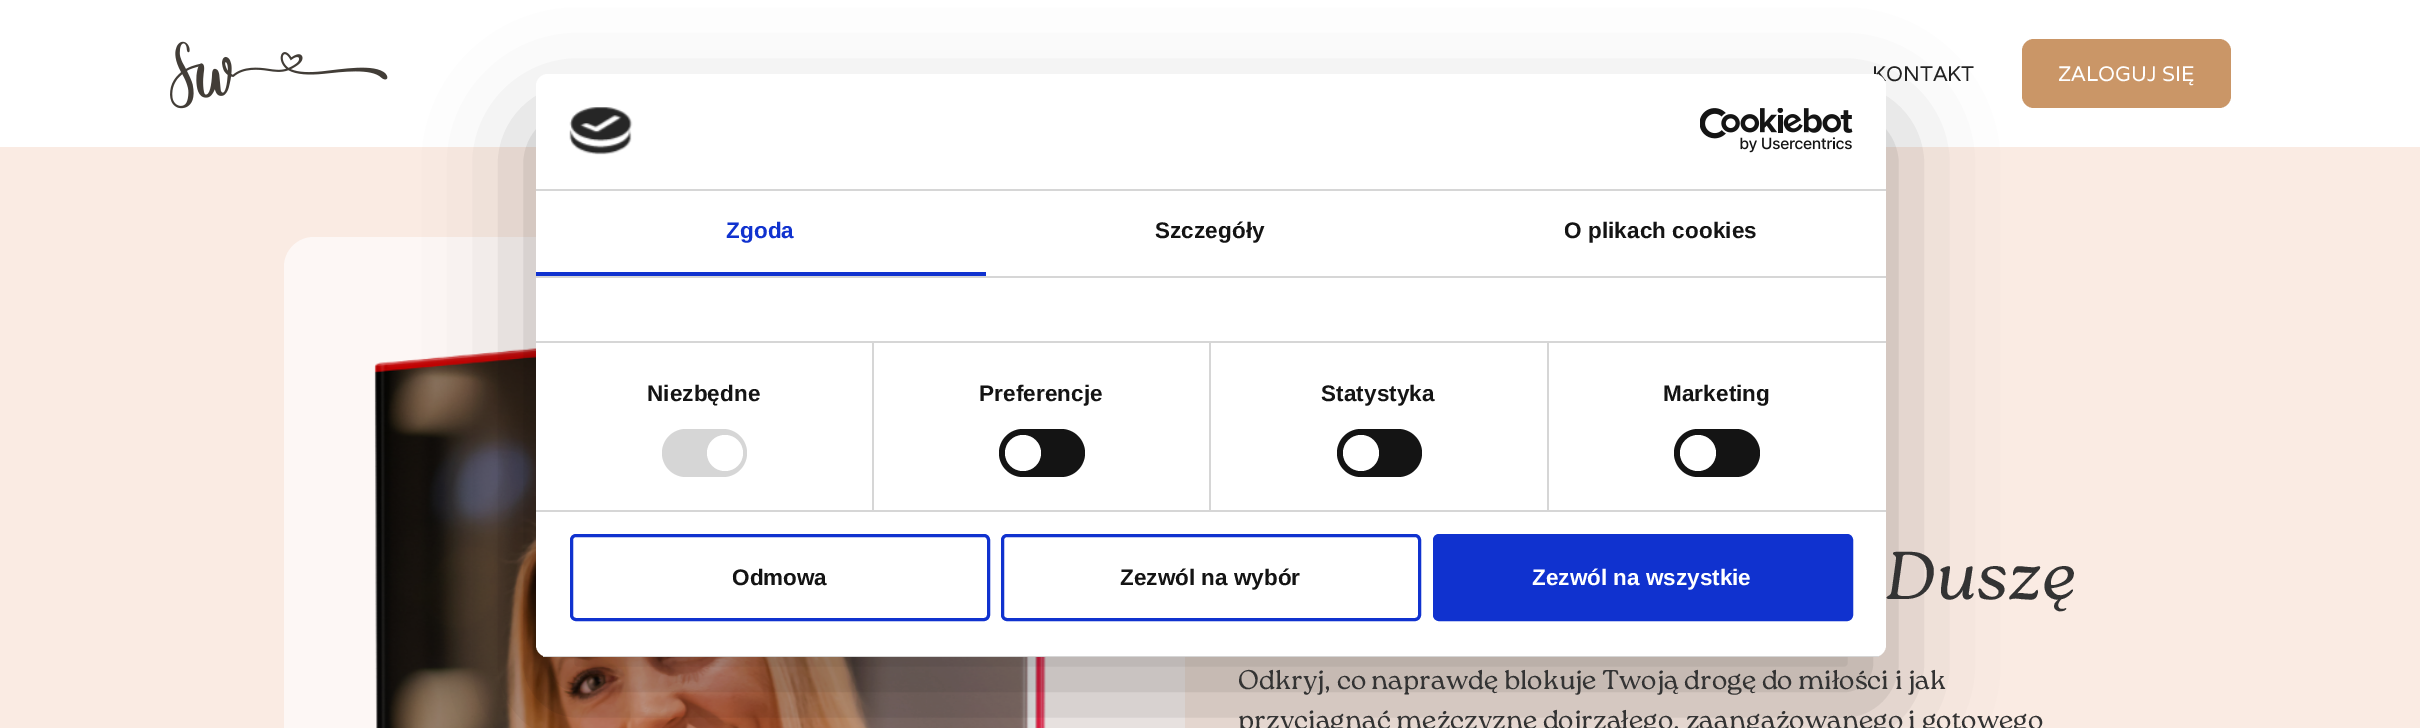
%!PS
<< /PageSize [2420 728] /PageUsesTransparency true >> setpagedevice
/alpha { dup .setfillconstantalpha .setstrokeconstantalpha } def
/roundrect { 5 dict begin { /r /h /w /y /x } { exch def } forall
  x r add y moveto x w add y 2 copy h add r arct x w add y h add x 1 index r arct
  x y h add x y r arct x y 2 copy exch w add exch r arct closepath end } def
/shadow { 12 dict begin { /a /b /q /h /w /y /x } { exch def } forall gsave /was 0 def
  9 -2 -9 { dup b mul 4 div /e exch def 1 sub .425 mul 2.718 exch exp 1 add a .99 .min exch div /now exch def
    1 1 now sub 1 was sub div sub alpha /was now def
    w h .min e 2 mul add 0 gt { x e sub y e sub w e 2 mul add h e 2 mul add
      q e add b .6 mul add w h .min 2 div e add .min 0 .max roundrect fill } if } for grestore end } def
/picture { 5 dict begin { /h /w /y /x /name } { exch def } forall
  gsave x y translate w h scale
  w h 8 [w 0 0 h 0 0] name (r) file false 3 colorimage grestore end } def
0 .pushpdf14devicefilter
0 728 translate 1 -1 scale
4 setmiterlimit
1 setgray
0 0 2420 728 rectfill
(img1.rgb) 170 41 218 68 picture
/Varela-Regular [21 0 0 -21 0 0] selectfont
0.133 setgray
1872 81 moveto (KONTAKT) show
0.792 0.588 0.404 setrgbcolor
2022 39 209 69 12 roundrect fill
1 setgray
2058 81 moveto (ZALOGUJ SIĘ) show
0.98 0.922 0.89 setrgbcolor
0 147 2420 581 rectfill
0.992 0.969 0.961 setrgbcolor
284 237 901 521 30 roundrect fill
(img4.rgb) 374 348 672 380 picture
0 setgray
536 122 1350 583 12 51 0.3 shadow
1 setgray
536 74 1350 583 12 roundrect fill
0.839 setgray
536 189 1350 2 rectfill
(img2.rgb) 569 107 64 48 picture
(img3.rgb) 1700 108 153 45 picture
536 276 1350 2 rectfill
0.063 0.196 0.812 setrgbcolor
536 272 450 4 rectfill
/LiberationSans-Bold [22.5 0 0 -22.5 0 0] selectfont
726 238 moveto 0.1 0 (Zgoda) ashow
0.078 setgray
1155 238 moveto 0.1 0 (Szczegóły) ashow
1564 238 moveto 0.1 0 (O plikach cookies) ashow
0.839 setgray
872 342 2 168 rectfill
1209 342 2 168 rectfill
1547 342 2 168 rectfill
536 341 1350 2 rectfill
536 510 1350 2 rectfill
0.078 setgray
647 401 moveto 0.1 0 (Niezbędne) ashow
0.839 setgray
662 429 85 48 24 roundrect fill
1 setgray
newpath 725 453 18 0 360 arc closepath fill
0.078 setgray
979 401 moveto 0.1 0 (Preferencje) ashow
999 429 86 48 24 roundrect fill
1 setgray
newpath 1023 453 18 0 360 arc closepath fill
0.078 setgray
1321 401 moveto 0.1 0 (Statystyka) ashow
1337 429 85 48 24 roundrect fill
1 setgray
newpath 1361 453 18 0 360 arc closepath fill
0.078 setgray
1663 401 moveto 0.1 0 (Marketing) ashow
1674 429 86 48 24 roundrect fill
1 setgray
newpath 1698 453 18 0 360 arc closepath fill
gsave
536 74 1350 583 12 roundrect clip newpath
0.839 setgray
536 656 1350 1 rectfill
grestore
0.063 0.196 0.812 setrgbcolor
3 setlinewidth
571.5 535.5 417 84 4.5 roundrect stroke
0.078 setgray
732 585 moveto (Odmowa) show
0.063 0.196 0.812 setrgbcolor
1002.5 535.5 417 84 4.5 roundrect stroke
0.078 setgray
1120 585 moveto (Zezwól na wybór) show
0.063 0.196 0.812 setrgbcolor
1434.5 535.5 417 84 4.5 roundrect gsave fill grestore
stroke
1 setgray
1532 585 moveto (Zezwól na wszystkie) show
/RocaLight-LightItalic [67.5 0 0 -67.5 0 0] selectfont
0.2 setgray
1885 599 moveto (Duszę) show
/RocaLight-Light [27 0 0 -27 0 0] selectfont
1238 689 moveto (Odkryj, co naprawdę blokuje Twoją drogę do miłości i jak) show
1238 729 moveto (przyciągnąć mężczyznę dojrzałego, zaangażowanego i gotowego) show
.poppdf14devicefilter showpage
